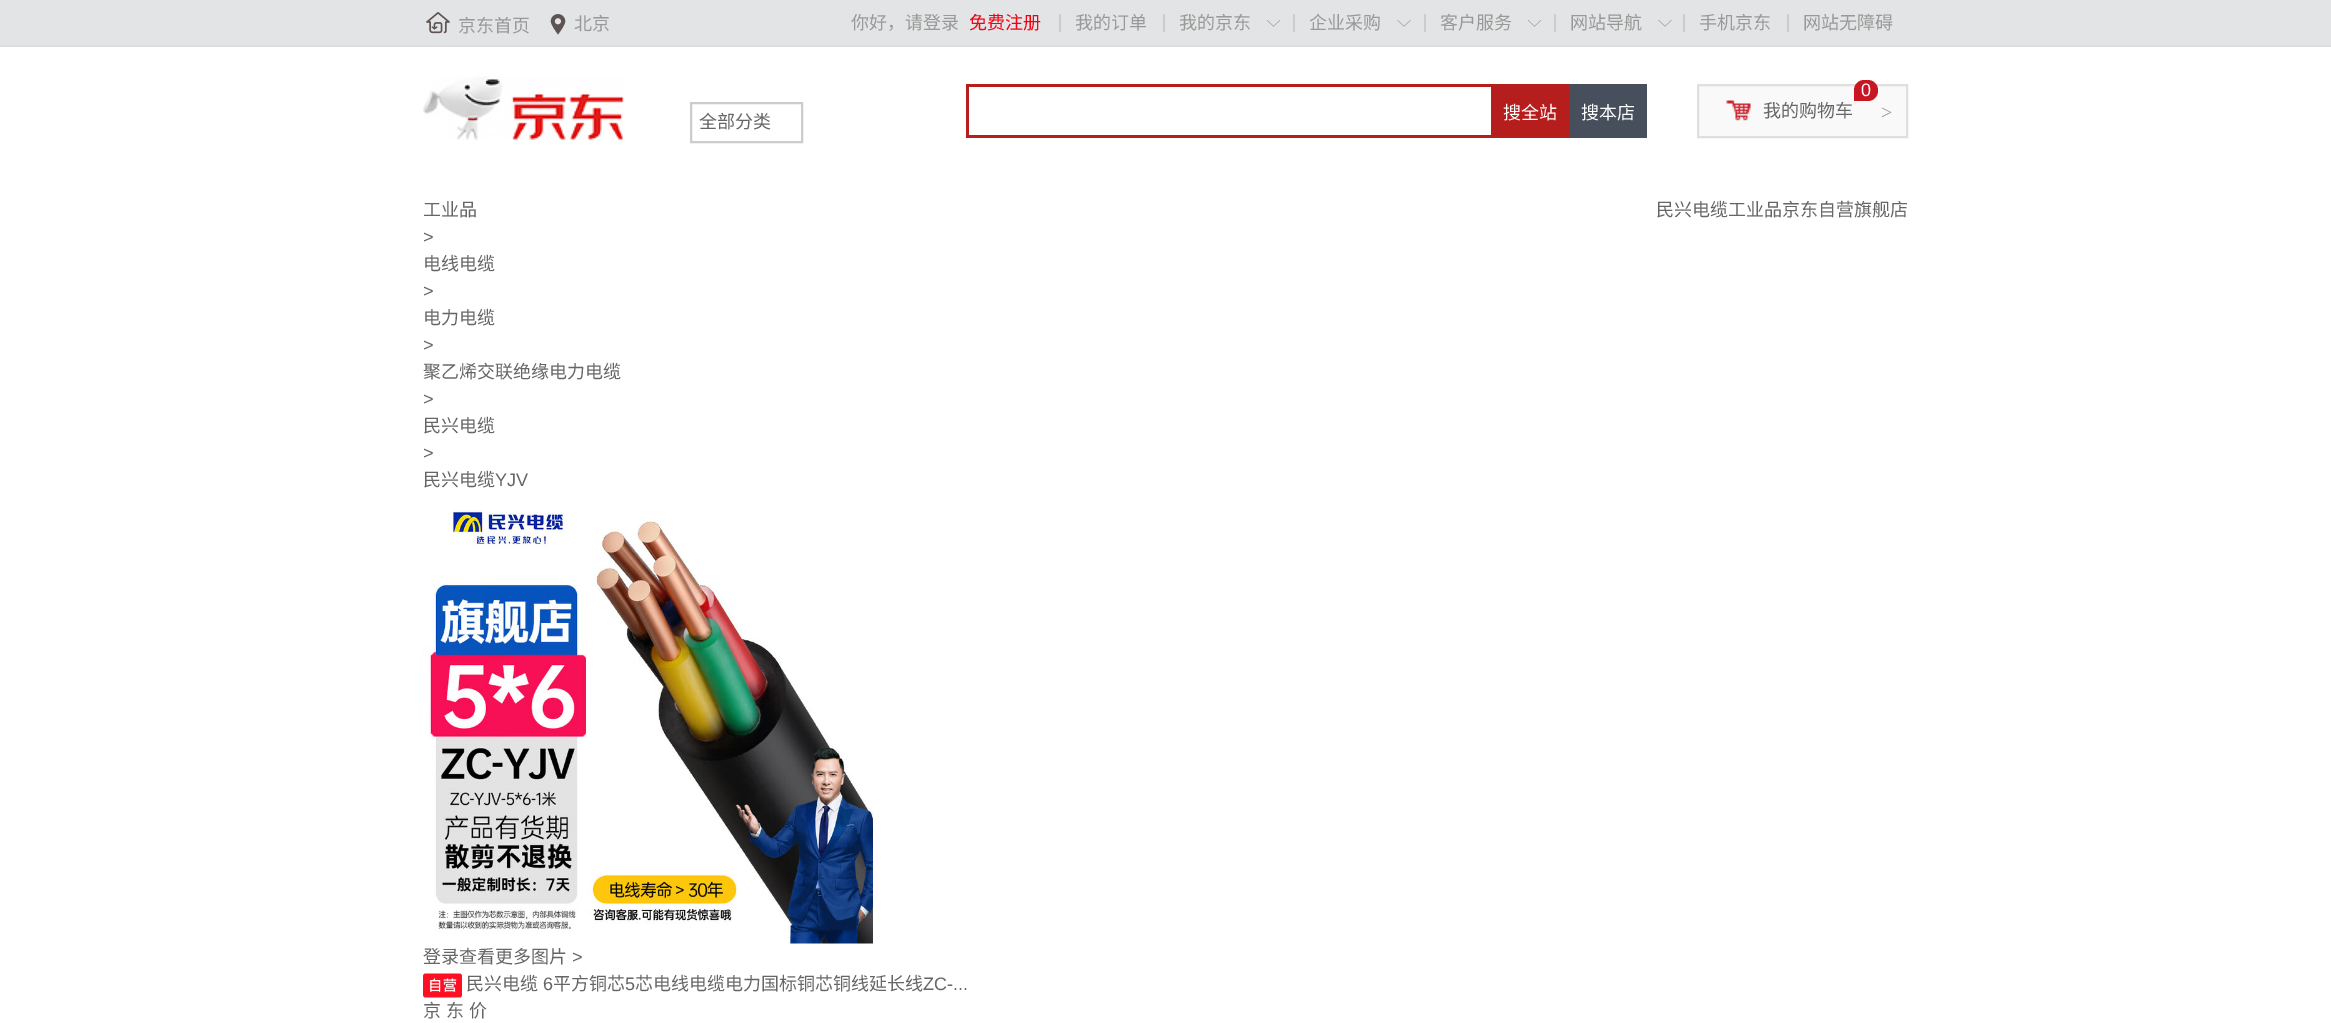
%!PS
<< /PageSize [2331 1023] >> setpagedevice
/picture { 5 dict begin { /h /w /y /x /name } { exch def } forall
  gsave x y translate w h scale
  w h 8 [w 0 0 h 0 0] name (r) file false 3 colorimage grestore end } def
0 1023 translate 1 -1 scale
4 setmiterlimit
1 setgray
0 0 2331 1023 rectfill
0.89 0.894 0.898 setrgbcolor
0 0 2331 45 rectfill
0.867 setgray
0 45 2331 2 rectfill
(img1.rgb) 426 12 24 22 picture
/NotoSansCJKSC-Regular [18 0 0 -18 0 0] selectfont
0.6 setgray
458 32 moveto (京东首页) show
(img2.rgb) 550 14 16 21 picture
574 30 moveto (北京) show
851 29 moveto (你好，请登录) show
0.953 0.008 0.075 setrgbcolor
969 29 moveto (免费注册) show
0.8 setgray
1059 14 2 18 rectfill
0.6 setgray
1075 29 moveto (我的订单) show
0.8 setgray
1163 14 2 18 rectfill
0.6 setgray
1179 29 moveto (我的京东) show
(img3.rgb) 1266 20 15 7 picture
0.8 setgray
1293 14 2 18 rectfill
0.6 setgray
1309 29 moveto (企业采购) show
(img4.rgb) 1397 19 14 8 picture
0.8 setgray
1424 14 2 18 rectfill
0.6 setgray
1440 29 moveto (客户服务) show
(img3.rgb) 1527 20 15 7 picture
0.8 setgray
1554 14 2 18 rectfill
0.6 setgray
1570 29 moveto (网站导航) show
(img4.rgb) 1658 19 14 8 picture
0.8 setgray
1683 14 2 18 rectfill
0.6 setgray
1699 29 moveto (手机京东) show
0.8 setgray
1787 14 2 18 rectfill
0.6 setgray
1803 29 moveto (网站无障碍) show
(img5.rgb) 423 76 201 64 picture
0.8 setgray
2 setlinewidth
691 103 111 39 rectstroke
0.4 setgray
699 128 moveto (全部分类) show
0.714 0.114 0.114 setrgbcolor
966 84 525 3 rectfill
966 135 525 3 rectfill
966 84 3 54 rectfill
1491 84 78 54 rectfill
1 setgray
1503 119 moveto (搜全站) show
0.278 0.306 0.361 setrgbcolor
1569 84 78 54 rectfill
1 setgray
1581 119 moveto (搜本店) show
0.976 setgray
newpath 1698 85 moveto 1907 85 lineto 1907 137 lineto 1698 137 lineto closepath gsave fill grestore
0.875 setgray
stroke
0.784 0.086 0.137 setrgbcolor
newpath 1864.5 80 moveto 1867.5 80 lineto 1873.5 80 1878 84.5 1878 90.5 curveto 1878 96.5 1873.5 101 1867.5 101 curveto 1854 101 lineto 1854 90.5 lineto 1854 84.5 1858.5 80 1864.5 80 curveto closepath fill
/LiberationSans-Regular [18 0 0 -18 0 0] selectfont
1 setgray
1861 96 moveto (0) show
(img6.rgb) 1726 100 25 21 picture
/NotoSansCJKSC-Regular [18 0 0 -18 0 0] selectfont
0.4 setgray
1763 117 moveto (我的购物车) show
/LiberationSerif-Regular [20 0 0 -20 0 0] selectfont
0.6 setgray
1881 119 moveto (>) show
/NotoSansCJKSC-Regular [18 0 0 -18 0 0] selectfont
0.4 setgray
423 216 moveto (工业品) show
/LiberationSans-Regular [18 0 0 -18 0 0] selectfont
423 243 moveto (>) show
/NotoSansCJKSC-Regular [18 0 0 -18 0 0] selectfont
423 270 moveto (电线电缆) show
/LiberationSans-Regular [18 0 0 -18 0 0] selectfont
423 297 moveto (>) show
/NotoSansCJKSC-Regular [18 0 0 -18 0 0] selectfont
423 324 moveto (电力电缆) show
/LiberationSans-Regular [18 0 0 -18 0 0] selectfont
423 351 moveto (>) show
/NotoSansCJKSC-Regular [18 0 0 -18 0 0] selectfont
423 378 moveto (聚乙烯交联绝缘电力电缆) show
/LiberationSans-Regular [18 0 0 -18 0 0] selectfont
423 405 moveto (>) show
/NotoSansCJKSC-Regular [18 0 0 -18 0 0] selectfont
423 432 moveto (民兴电缆) show
/LiberationSans-Regular [18 0 0 -18 0 0] selectfont
423 459 moveto (>) show
/NotoSansCJKSC-Regular [18 0 0 -18 0 0] selectfont
423 486 moveto (民兴电缆) show
/LiberationSans-Regular [18 0 0 -18 0 0] selectfont
495 486 moveto (YJV) show
/NotoSansCJKSC-Regular [18 0 0 -18 0 0] selectfont
1656 216 moveto (民兴电缆工业品京东自营旗舰店) show
(img7.rgb) 423 509 450 435 picture
423 963 moveto (登录查看更多图片) show
/LiberationSans-Regular [18 0 0 -18 0 0] selectfont
572 963 moveto (>) show
(img8.rgb) 423 973 39 25 picture
/NotoSansCJKSC-Regular [18 0 0 -18 0 0] selectfont
466 990 moveto (民兴电缆) show
/LiberationSans-Regular [18 0 0 -18 0 0] selectfont
543 990 moveto (6) show
/NotoSansCJKSC-Regular [18 0 0 -18 0 0] selectfont
553 990 moveto (平方铜芯) show
/LiberationSans-Regular [18 0 0 -18 0 0] selectfont
625 990 moveto (5) show
/NotoSansCJKSC-Regular [18 0 0 -18 0 0] selectfont
635 990 moveto (芯电线电缆电力国标铜芯铜线延长线) show
/LiberationSans-Regular [18 0 0 -18 0 0] selectfont
923 990 moveto (ZC-...) show
/NotoSansCJKSC-Regular [18 0 0 -18 0 0] selectfont
423 1017 moveto 1 0 32 (京 东 价) widthshow
showpage
